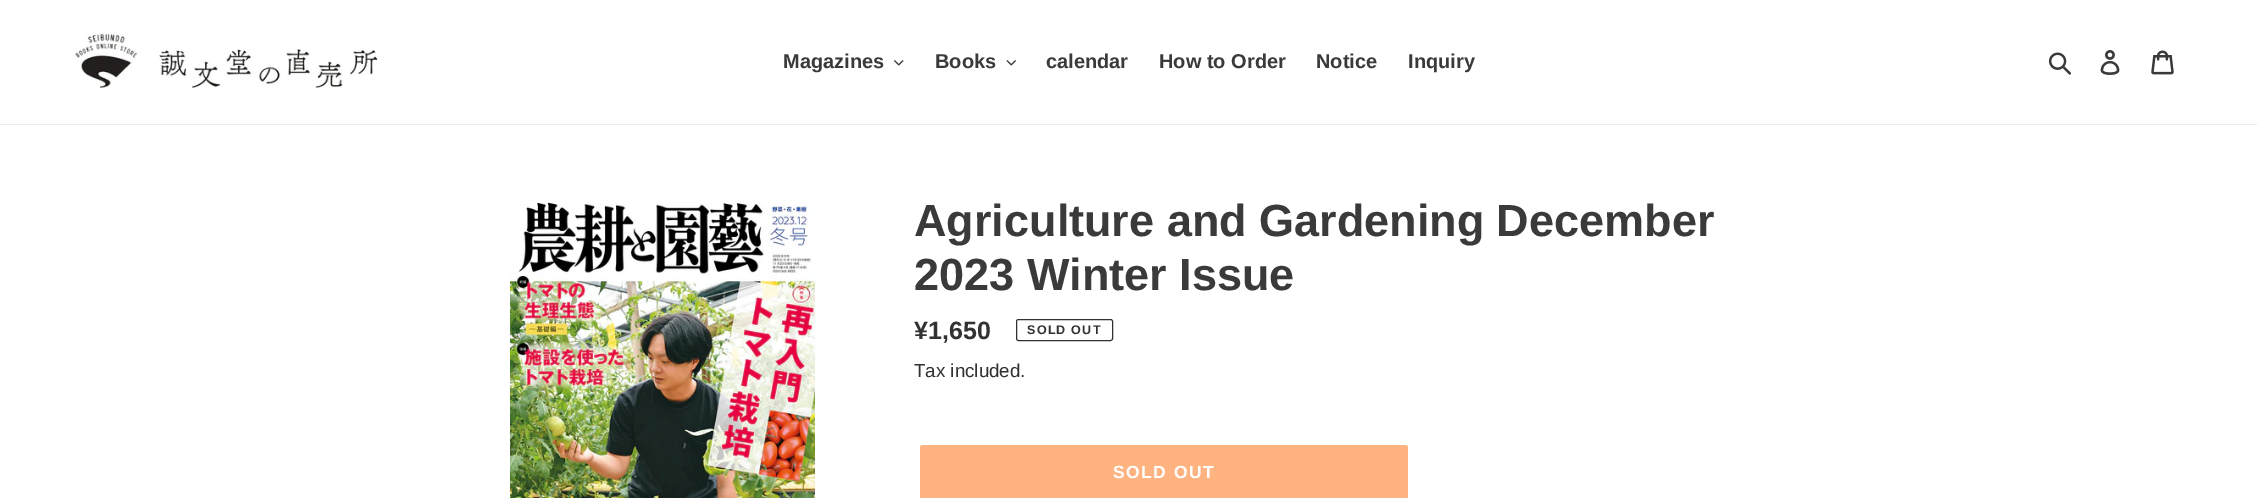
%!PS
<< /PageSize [2257 498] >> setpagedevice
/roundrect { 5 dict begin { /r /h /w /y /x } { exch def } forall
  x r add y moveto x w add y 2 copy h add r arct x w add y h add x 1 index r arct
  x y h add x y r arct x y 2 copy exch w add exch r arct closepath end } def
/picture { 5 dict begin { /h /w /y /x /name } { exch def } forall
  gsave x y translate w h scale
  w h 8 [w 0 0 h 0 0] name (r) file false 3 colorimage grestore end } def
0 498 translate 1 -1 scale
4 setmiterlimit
1 setgray
0 0 2257 498 rectfill
0.922 setgray
0 124 2257 1 rectfill
(img1.rgb) 73 33 305 56 picture
/LiberationSans-Bold [20 0 0 -20 0 0] selectfont
0.227 setgray
783 68 moveto (Magazines) show
(img2.rgb) 894 60 10 6 picture
935 68 moveto (Books) show
(img3.rgb) 1006 60 10 6 picture
1046 68 moveto (calendar) show
1159 68 moveto (How to Order) show
1316 68 moveto (Notice) show
1408 68 moveto (Inquiry) show
(img4.rgb) 2048 52 23 23 picture
(img5.rgb) 2100 50 20 25 picture
(img6.rgb) 2151 50 23 25 picture
(img7.rgb) 510 202 305 296 picture
/LiberationSans-Bold [45 0 0 -45 0 0] selectfont
914 236 moveto (Agriculture and Gardening December) show
914 290 moveto (2023 Winter Issue) show
/LiberationSans-Bold [25 0 0 -25 0 0] selectfont
0.2 0.196 0.196 setrgbcolor
914 339 moveto (¥1,650) show
1016.5 319.5 96 21 2 roundrect stroke
/LiberationSans-Bold [12.5 0 0 -12.5 0 0] selectfont
1027 334 moveto 1.25 0 (SOLD OUT) ashow
/LiberationSans-Regular [18.75 0 0 -18.75 0 0] selectfont
914 377 moveto (Tax included.) show
1 0.702 0.502 setrgbcolor
920 445 488 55 2.5 roundrect fill
/LiberationSans-Bold [17.5 0 0 -17.5 0 0] selectfont
1 setgray
1113 478 moveto 1.5 0 (SOLD OUT) ashow
showpage
